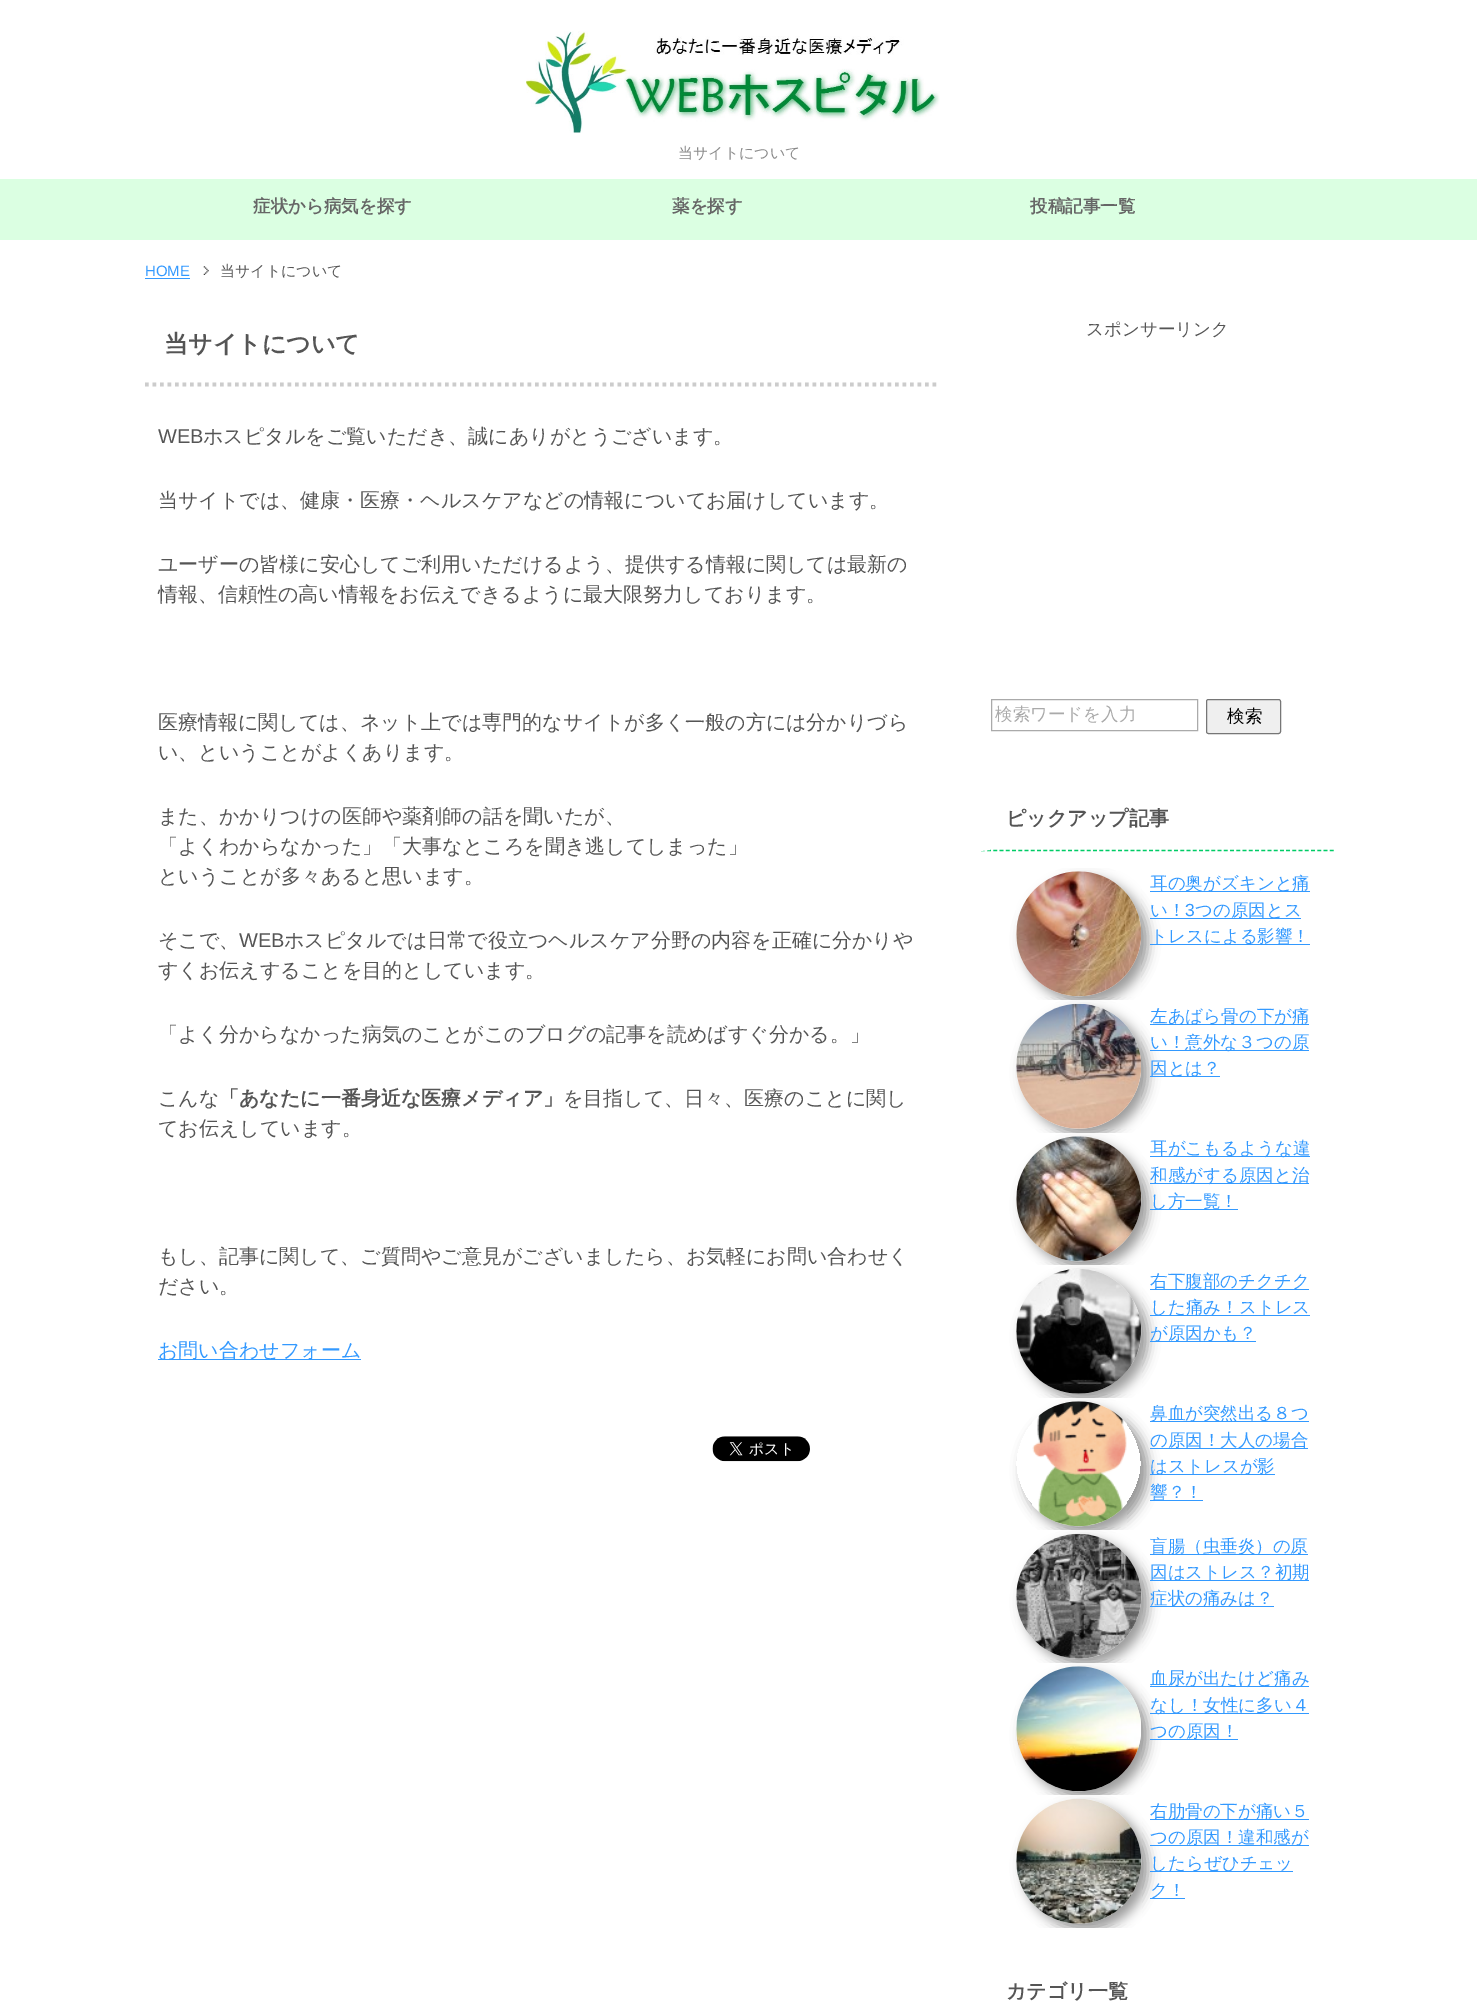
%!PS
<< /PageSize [1477 2013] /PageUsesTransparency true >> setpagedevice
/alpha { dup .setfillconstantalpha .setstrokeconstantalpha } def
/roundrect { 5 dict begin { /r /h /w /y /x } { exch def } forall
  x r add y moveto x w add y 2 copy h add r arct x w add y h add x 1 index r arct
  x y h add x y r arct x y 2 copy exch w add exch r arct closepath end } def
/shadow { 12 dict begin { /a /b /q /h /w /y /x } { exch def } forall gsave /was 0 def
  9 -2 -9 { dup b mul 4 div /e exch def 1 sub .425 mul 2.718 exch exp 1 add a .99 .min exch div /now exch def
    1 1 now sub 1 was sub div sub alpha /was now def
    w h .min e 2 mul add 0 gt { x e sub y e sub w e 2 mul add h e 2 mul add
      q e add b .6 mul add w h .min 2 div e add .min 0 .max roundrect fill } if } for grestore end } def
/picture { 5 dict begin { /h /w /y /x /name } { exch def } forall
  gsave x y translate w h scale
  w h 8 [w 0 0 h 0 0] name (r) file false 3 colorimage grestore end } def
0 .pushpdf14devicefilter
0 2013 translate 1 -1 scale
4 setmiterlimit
1 setgray
0 0 1477 2013 rectfill
(img1.rgb) 526 31 414 102 picture
/WenQuanYiZenHei-Medium [15 0 0 -15 0 0] selectfont
0.533 setgray
678 158 moveto (当サイトについて) show
0.859 1 0.886 setrgbcolor
0 179 1477 61 rectfill
/WenQuanYiZenHei-Bold [17.5 0 0 -17.5 0 0] selectfont
0.4 setgray
253 212 moveto (症状から病気を探す) show
672 212 moveto (薬を探す) show
1030 212 moveto (投稿記事一覧) show
/LiberationSans-Regular [15 0 0 -15 0 0] selectfont
0.2 0.6 1 setrgbcolor
145 276 moveto (HOME) show
145 278 45 1 rectfill
(img2.rgb) 203 266 6 9 picture
/WenQuanYiZenHei-Medium [15 0 0 -15 0 0] selectfont
0.333 setgray
220 276 moveto (当サイトについて) show
0.8 setgray
3.8 setlinewidth
[3.75 3.75] 0 setdash
newpath 145 384.5 moveto 939 384.5 lineto stroke
/WenQuanYiZenHei-Bold [24 0 0 -24 0 0] selectfont
0.333 setgray
164 352 moveto (当サイトについて) show
/LiberationSans-Regular [20 0 0 -20 0 0] selectfont
158 443 moveto (WEB) show
/WenQuanYiZenHei-Medium [20 0 0 -20 0 0] selectfont
203 443 moveto (ホスピタルをご覧いただき、誠にありがとうございます。) show
158 507 moveto (当サイトでは、健康・医療・ヘルスケアなどの情報についてお届けしています。) show
158 571 moveto (ユーザーの皆様に安心してご利用いただけるよう、提供する情報に関しては最新の) show
158 601 moveto (情報、信頼性の高い情報をお伝えできるように最大限努力しております。) show
158 729 moveto (医療情報に関しては、ネット上では専門的なサイトが多く一般の方には分かりづら) show
158 759 moveto (い、ということがよくあります。) show
158 823 moveto (また、かかりつけの医師や薬剤師の話を聞いたが、) show
158 853 moveto (「よくわからなかった」「大事なところを聞き逃してしまった」) show
158 883 moveto (ということが多々あると思います。) show
158 947 moveto (そこで、) show
/LiberationSans-Regular [20 0 0 -20 0 0] selectfont
239 947 moveto (WEB) show
/WenQuanYiZenHei-Medium [20 0 0 -20 0 0] selectfont
284 947 moveto (ホスピタルでは日常で役立つヘルスケア分野の内容を正確に分かりや) show
158 977 moveto (すくお伝えすることを目的としています。) show
158 1041 moveto (「よく分からなかった病気のことがこのブログの記事を読めばすぐ分かる。」) show
158 1105 moveto (こんな) show
/WenQuanYiZenHei-Bold [20 0 0 -20 0 0] selectfont
219 1105 moveto (「あなたに一番身近な医療メディア」) show
/WenQuanYiZenHei-Medium [20 0 0 -20 0 0] selectfont
563 1105 moveto (を目指して、日々、医療のことに関し) show
158 1135 moveto (てお伝えしています。) show
158 1263 moveto (もし、記事に関して、ご質問やご意見がございましたら、お気軽にお問い合わせく) show
158 1293 moveto (ださい。) show
0.2 0.6 1 setrgbcolor
158 1359 203 1 rectfill
158 1357 moveto (お問い合わせフォーム) show
(img3.rgb) 712 1436 98 26 picture
/WenQuanYiZenHei-Medium [17.5 0 0 -17.5 0 0] selectfont
0.333 setgray
1086 335 moveto (スポンサーリンク) show
0.667 setgray
1 setlinewidth
[] 0 setdash
991.5 699.5 206 31 rectstroke
995 720 moveto (検索ワードを入力) show
0.937 setgray
1206.5 699.5 74 34 2 roundrect gsave fill grestore
0.463 setgray
stroke
0 setgray
1227 722 moveto (検索) show
0 0.8 0.4 setrgbcolor
1.2 setlinewidth
[3.75 2.48] 0 setdash
newpath 981 850.5 moveto 1334 850.5 lineto stroke
1 setgray
newpath 981 851 moveto 981 788 lineto 990 788 lineto 990 850 lineto closepath fill
/WenQuanYiZenHei-Bold [20 0 0 -20 0 0] selectfont
0.333 setgray
1006 825 moveto (ピックアップ記事) show
gsave
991 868 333 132 rectclip
0 setgray
1023 878 125 125 62.5 6 0.4 shadow
grestore
(img4.rgb) 1016 871 125 126 picture
0.2 0.6 1 setrgbcolor
1150 891 160 1 rectfill
/WenQuanYiZenHei-Medium [17.5 0 0 -17.5 0 0] selectfont
1150 889 moveto (耳の奥がズキンと痛) show
1150 916 moveto (い！) show
1150 918 151 1 rectfill
/LiberationSans-Regular [17.5 0 0 -17.5 0 0] selectfont
1185 916 moveto (3) show
/WenQuanYiZenHei-Medium [17.5 0 0 -17.5 0 0] selectfont
1195 916 moveto (つの原因とス) show
1150 944 160 1 rectfill
1150 942 moveto (トレスによる影響！) show
gsave
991 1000 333 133 rectclip
0 setgray
1023 1010 125 125 62.5 6 0.4 shadow
grestore
(img5.rgb) 1016 1003 125 126 picture
1150 1024 159 1 rectfill
1150 1022 moveto (左あばら骨の下が痛) show
1150 1050 159 1 rectfill
1150 1048 moveto (い！意外な３つの原) show
1150 1076 70 1 rectfill
1150 1074 moveto (因とは？) show
gsave
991 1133 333 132 rectclip
0 setgray
1023 1143 125 125 62.5 6 0.4 shadow
grestore
(img6.rgb) 1016 1136 126 126 picture
1150 1156 160 1 rectfill
1150 1154 moveto (耳がこもるような違) show
1150 1183 159 1 rectfill
1150 1181 moveto (和感がする原因と治) show
1150 1209 88 1 rectfill
1150 1207 moveto (し方一覧！) show
gsave
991 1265 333 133 rectclip
0 setgray
1023 1275 125 125 62.5 6 0.4 shadow
grestore
(img7.rgb) 1016 1269 126 125 picture
1150 1289 159 1 rectfill
1150 1287 moveto (右下腹部のチクチク) show
1150 1315 160 1 rectfill
1150 1313 moveto (した痛み！ストレス) show
1150 1341 106 1 rectfill
1150 1339 moveto (が原因かも？) show
gsave
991 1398 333 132 rectclip
newpath 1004 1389 moveto 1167 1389 lineto 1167 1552 lineto 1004 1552 lineto closepath 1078.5 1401 moveto 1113 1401 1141 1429 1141 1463.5 curveto 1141 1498 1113 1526 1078.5 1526 curveto 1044 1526 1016 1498 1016 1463.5 curveto 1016 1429 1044 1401 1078.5 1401 curveto closepath eoclip newpath
0 setgray
1023 1408 125 125 62.5 6 0.4 shadow
grestore
(img8.rgb) 1032 1401 95 126 picture
1150 1421 159 1 rectfill
1150 1419 moveto (鼻血が突然出る８つ) show
1150 1448 158 1 rectfill
1150 1446 moveto (の原因！大人の場合) show
1150 1474 125 1 rectfill
1150 1472 moveto (はストレスが影) show
1150 1500 53 1 rectfill
1150 1498 moveto (響？！) show
gsave
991 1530 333 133 rectclip
0 setgray
1023 1540 125 125 62.5 6 0.4 shadow
grestore
(img9.rgb) 1016 1533 126 126 picture
1150 1554 158 1 rectfill
1150 1552 moveto (盲腸（虫垂炎）の原) show
1150 1580 159 1 rectfill
1150 1578 moveto (因はストレス？初期) show
1150 1606 124 1 rectfill
1150 1604 moveto (症状の痛みは？) show
gsave
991 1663 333 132 rectclip
0 setgray
1023 1673 125 125 62.5 6 0.4 shadow
grestore
(img10.rgb) 1016 1666 125 126 picture
1150 1686 159 1 rectfill
1150 1684 moveto (血尿が出たけど痛み) show
1150 1713 159 1 rectfill
1150 1711 moveto (なし！女性に多い４) show
1150 1739 88 1 rectfill
1150 1737 moveto (つの原因！) show
gsave
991 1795 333 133 rectclip
0 setgray
1023 1805 125 125 62.5 6 0.4 shadow
grestore
(img11.rgb) 1016 1799 126 125 picture
1150 1819 159 1 rectfill
1150 1817 moveto (右肋骨の下が痛い５) show
1150 1845 159 1 rectfill
1150 1843 moveto (つの原因！違和感が) show
1150 1871 143 1 rectfill
1150 1869 moveto (したらぜひチェッ) show
1150 1898 35 1 rectfill
1150 1896 moveto (ク！) show
/WenQuanYiZenHei-Bold [20 0 0 -20 0 0] selectfont
0.333 setgray
1006 1998 moveto (カテゴリ一覧) show
.poppdf14devicefilter showpage
